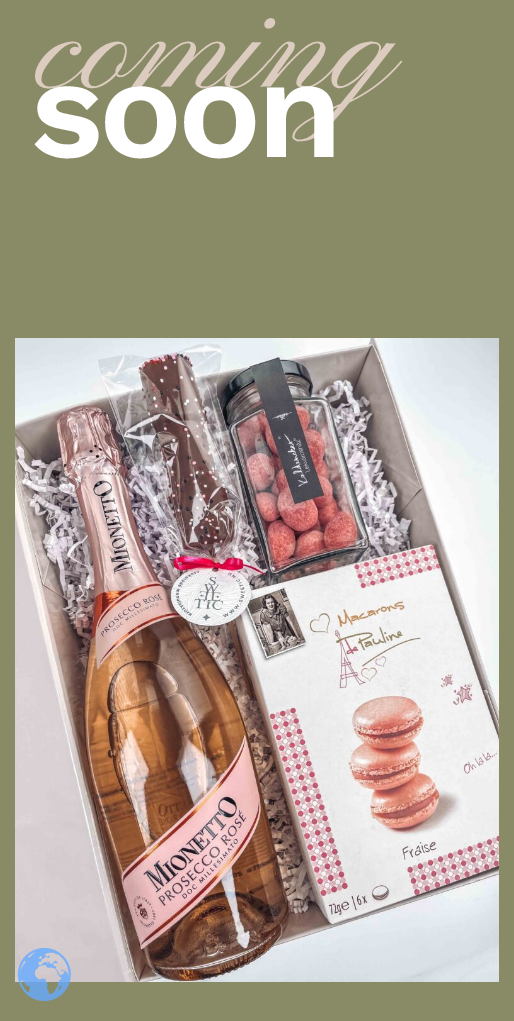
%!PS
<< /PageSize [514 1021] >> setpagedevice
/picture { 5 dict begin { /h /w /y /x /name } { exch def } forall
  gsave x y translate w h scale
  w h 8 [w 0 0 h 0 0] name (r) file false 3 colorimage grestore end } def
0 1021 translate 1 -1 scale
4 setmiterlimit
0.537 0.541 0.4 setrgbcolor
0 0 514 1021 rectfill
/PinyonScript-Regular [139 0 0 -139 0 0] selectfont
0.863 0.8 0.753 setrgbcolor
35 88 moveto (coming) show
/WorkSans-SemiBold [139 0 0 -139 0 0] selectfont
1 setgray
30 157 moveto -4.5 0 (soon) ashow
(img1.rgb) 15 338 484 644 picture
(img2.rgb) 17 947 54 55 picture
showpage
